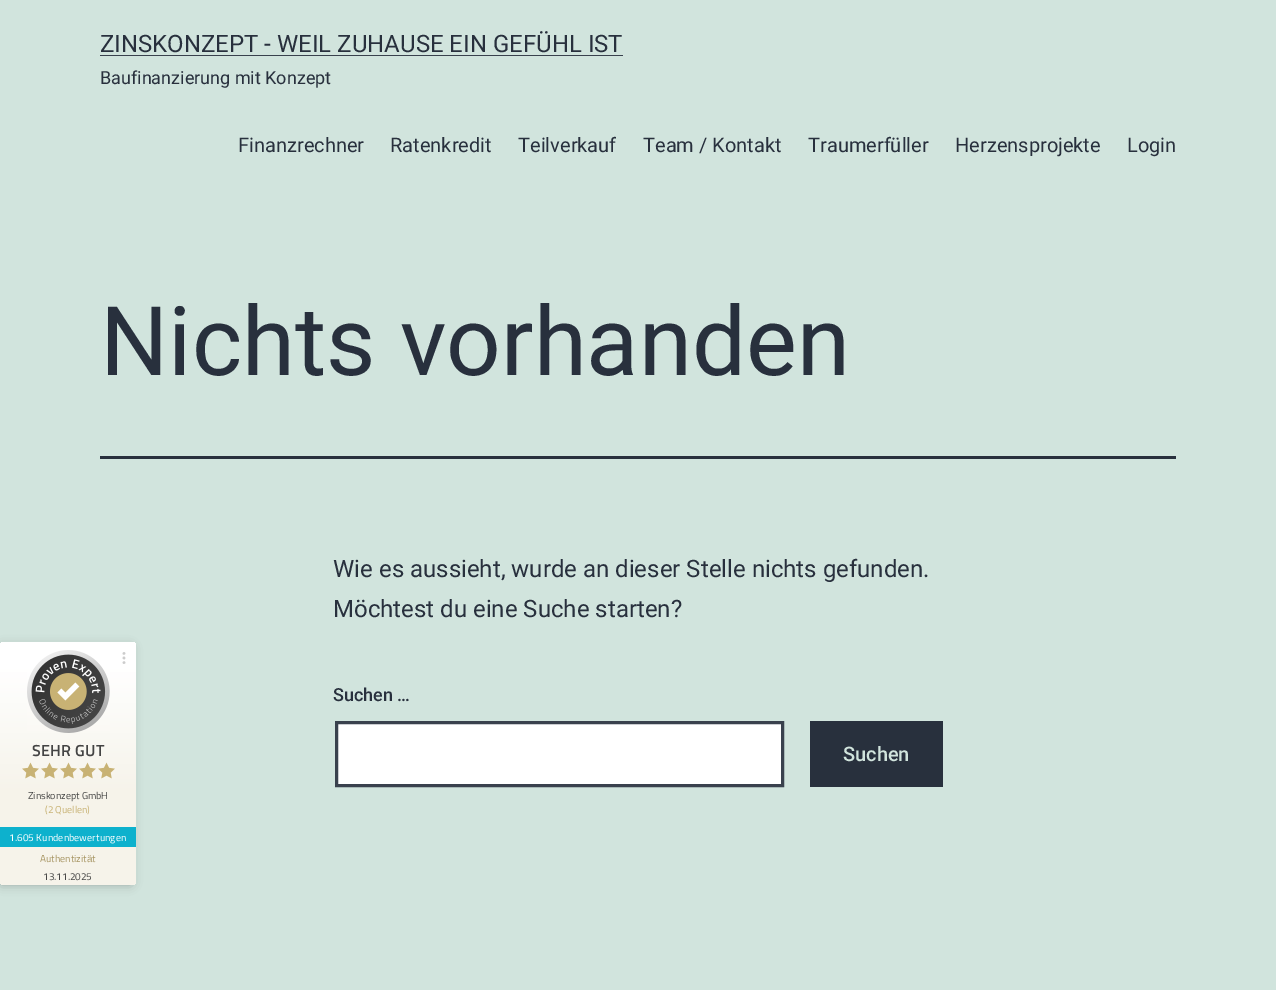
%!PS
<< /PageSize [1276 990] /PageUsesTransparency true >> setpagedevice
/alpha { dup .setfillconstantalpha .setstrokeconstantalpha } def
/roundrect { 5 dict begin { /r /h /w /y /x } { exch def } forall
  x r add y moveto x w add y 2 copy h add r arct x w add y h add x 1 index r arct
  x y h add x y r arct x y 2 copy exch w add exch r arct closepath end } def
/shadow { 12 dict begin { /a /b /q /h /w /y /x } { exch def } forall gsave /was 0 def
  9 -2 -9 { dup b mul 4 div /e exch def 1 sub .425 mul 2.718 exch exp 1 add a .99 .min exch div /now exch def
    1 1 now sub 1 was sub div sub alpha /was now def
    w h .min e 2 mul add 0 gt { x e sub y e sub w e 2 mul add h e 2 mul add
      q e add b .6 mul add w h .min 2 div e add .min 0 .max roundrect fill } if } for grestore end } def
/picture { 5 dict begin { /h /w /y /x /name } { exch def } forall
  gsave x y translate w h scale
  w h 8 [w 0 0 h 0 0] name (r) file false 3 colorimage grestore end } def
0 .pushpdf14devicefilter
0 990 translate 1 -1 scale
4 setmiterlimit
0.82 0.894 0.867 setrgbcolor
0 0 1276 990 rectfill
/Roboto-Regular [24 0 0 -24 0 0] selectfont
0.157 0.188 0.239 setrgbcolor
100 52 moveto (ZINSKONZEPT - WEIL ZUHAUSE EIN GEFÜHL IST) show
0.224 0.255 0.302 setrgbcolor
100 55 523 1 rectfill
/Roboto-Regular [18 0 0 -18 0 0] selectfont
0.157 0.188 0.239 setrgbcolor
100 84 moveto (Baufinanzierung mit Konzept) show
/Roboto-Regular [20 0 0 -20 0 0] selectfont
238 152 moveto (Finanzrechner) show
390 152 moveto (Ratenkredit) show
518 152 moveto (Teilverkauf) show
643 152 moveto (Team / Kontakt) show
808 152 moveto (Traumerfüller) show
955 152 moveto (Herzensprojekte) show
1127 152 moveto (Login) show
100 456 1076 3 rectfill
/Roboto-Regular [96 0 0 -96 0 0] selectfont
100 375 moveto (Nichts vorhanden) show
/Roboto-Regular [24 0 0 -24 0 0] selectfont
333 577 moveto (Wie es aussieht, wurde an dieser Stelle nichts gefunden.) show
333 617 moveto (Möchtest du eine Suche starten?) show
/Roboto-Medium [18 0 0 -18 0 0] selectfont
333 701 moveto (Suchen …) show
1 setgray
newpath 336.5 722.5 moveto 782.5 722.5 lineto 782.5 785.5 lineto 336.5 785.5 lineto closepath gsave fill grestore
0.224 0.255 0.302 setrgbcolor
3 setlinewidth
stroke
0.157 0.188 0.239 setrgbcolor
810 721 133 66 rectfill
/Roboto-Medium [20 0 0 -20 0 0] selectfont
0.82 0.894 0.867 setrgbcolor
843 761 moveto (Suchen) show
0 setgray
0 646 132 239 2 5 0.25 shadow
gsave 0 642 136 243 4 roundrect clip newpath
<< /ShadingType 2 /ColorSpace /DeviceRGB /Coords [68 885 68 642] /Extend [true true] /Function << /FunctionType 3 /Domain [0 1] /Functions [<< /FunctionType 2 /Domain [0 1] /C0 [0.965 0.953 0.918] /C1 [0.965 0.953 0.918] /N 1 >> << /FunctionType 2 /Domain [0 1] /C0 [0.965 0.953 0.918] /C1 [1 1 1] /N 1 >> << /FunctionType 2 /Domain [0 1] /C0 [1 1 1] /C1 [1 1 1] /N 1 >>] /Bounds [0.37 0.9] /Encode [0 1 0 1 0 1] >> >> shfill grestore
(img1.rgb) 27 650 83 83 picture
(img2.rgb) 122 652 4 12 picture
/TitilliumWeb-SemiBold [16 0 0 -16 0 0] selectfont
0.267 setgray
32 756 moveto 0.25 0 (SEHR GUT) ashow
(img3.rgb) 22 762 17 17 picture
(img3.rgb) 41 762 17 17 picture
(img3.rgb) 60 762 17 17 picture
(img3.rgb) 79 762 17 17 picture
(img3.rgb) 98 762 17 17 picture
/TitilliumWeb-Regular [10 0 0 -10 0 0] selectfont
28 799 moveto (Zinskonzept GmbH) show
0.784 0.698 0.455 setrgbcolor
45 813 moveto (\(2 Quellen\)) show
0.051 0.694 0.804 setrgbcolor
0 827 136 20 rectfill
1 setgray
9 841 moveto 0.1 0 (1.605 Kundenbewertungen) ashow
0.655 0.584 0.388 setrgbcolor
40 862 moveto (Authentizit) show
/LiberationSans-Regular [10 0 0 -10 0 0] selectfont
87 862 moveto (ä) show
/TitilliumWeb-Regular [10 0 0 -10 0 0] selectfont
92 862 moveto (t) show
0.267 setgray
43 880 moveto (13.11.2025) show
.poppdf14devicefilter showpage
